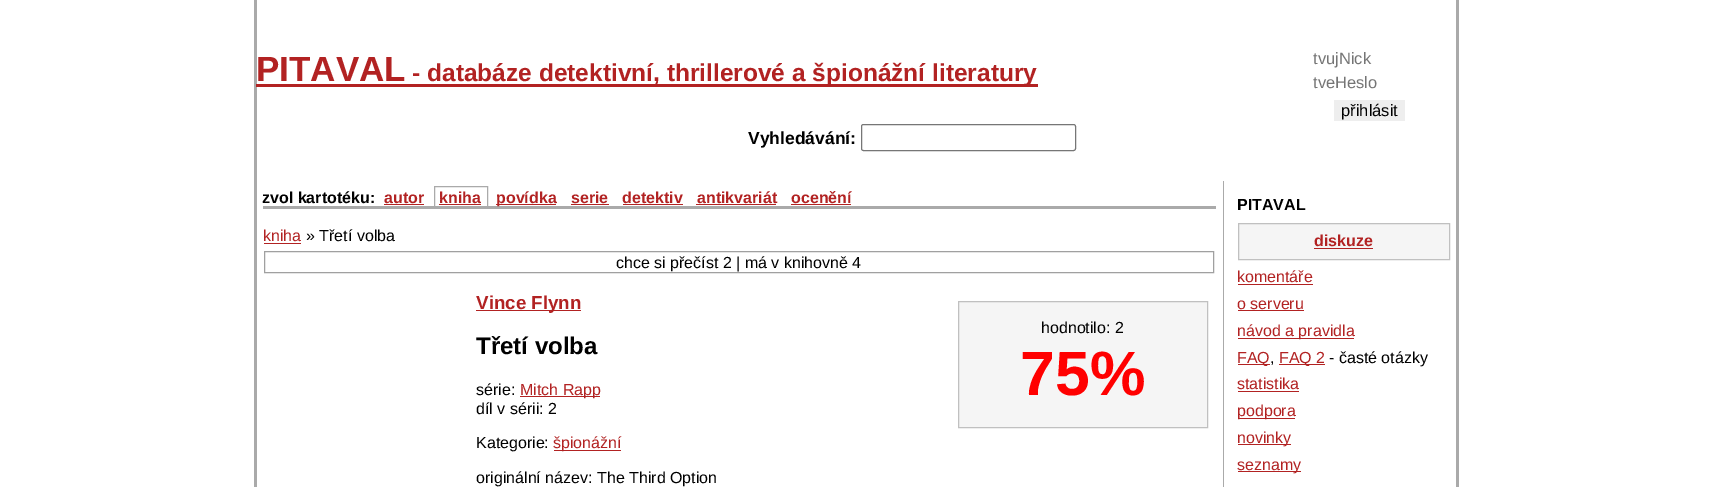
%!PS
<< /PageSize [1711 487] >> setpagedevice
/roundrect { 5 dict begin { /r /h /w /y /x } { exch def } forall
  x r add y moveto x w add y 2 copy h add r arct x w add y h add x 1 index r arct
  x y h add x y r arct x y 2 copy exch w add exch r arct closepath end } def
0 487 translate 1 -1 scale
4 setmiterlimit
1 setgray
0 0 1711 487 rectfill
0.667 setgray
1456 0 3 487 rectfill
254 0 3 487 rectfill
/LiberationSans-Bold [35 0 0 -35 0 0] selectfont
0.698 0.133 0.133 setrgbcolor
256 81 moveto (PITAVAL) show
256 84 782 3 rectfill
/LiberationSans-Bold [24.5 0 0 -24.5 0 0] selectfont
412 81 moveto (- databáze detektivní, thrillerové a špionážní literatury) show
/LiberationSans-Regular [16.5 0 0 -16.5 0 0] selectfont
0.459 setgray
1313 64 moveto (tvujNick) show
1313 88 moveto (tveHeslo) show
0.933 setgray
1334 100 71 21 rectfill
0 setgray
1341 116 moveto (přihlásit) show
/LiberationSans-Bold [17.5 0 0 -17.5 0 0] selectfont
748 144 moveto (Vyhledávání:) show
0.463 setgray
861.5 124.5 214 26 2 roundrect stroke
0.667 setgray
1223 181 1 306 rectfill
263 206 953 3 rectfill
/LiberationSans-Bold [16 0 0 -16 0 0] selectfont
0 setgray
262 203 moveto (zvol kartotéku:) show
0.698 0.133 0.133 setrgbcolor
384 203 moveto (autor) show
384 204 40 1 rectfill
0.667 setgray
434.5 186.5 53 21 rectstroke
0.698 0.133 0.133 setrgbcolor
439 203 moveto (kniha) show
439 204 42 1 rectfill
496 204 60 1 rectfill
496 203 moveto (povídka) show
571 203 moveto (serie) show
571 204 38 1 rectfill
622 203 moveto (detektiv) show
623 204 60 1 rectfill
697 203 moveto (antikvariát) show
696 204 80 1 rectfill
791 203 moveto (ocenění) show
791 204 60 1 rectfill
/LiberationSans-Regular [16 0 0 -16 0 0] selectfont
263 241 moveto (kniha) show
264 243 37 1 rectfill
0 setgray
306 241 moveto (» Třetí volba) show
0.627 setgray
264.5 251.5 949 21 rectstroke
0 setgray
616 268 moveto (chce si přečíst 2 | má v knihovně 4) show
0.698 0.133 0.133 setrgbcolor
476 310 105 1 rectfill
/LiberationSans-Bold [18.75 0 0 -18.75 0 0] selectfont
476 309 moveto (Vince Flynn) show
/LiberationSans-Bold [24 0 0 -24 0 0] selectfont
0 setgray
476 354 moveto (Třetí volba) show
/LiberationSans-Regular [16 0 0 -16 0 0] selectfont
476 395 moveto (série:) show
0.698 0.133 0.133 setrgbcolor
520 396 80 1 rectfill
520 395 moveto (Mitch Rapp) show
0 setgray
476 414 moveto (díl v sérii: 2) show
476 448 moveto (Kategorie:) show
0.698 0.133 0.133 setrgbcolor
554 450 67 1 rectfill
553 448 moveto (špionážní) show
0 setgray
476 483 moveto (originální název: The Third Option) show
0.961 setgray
newpath 958.5 301.5 moveto 1207.5 301.5 lineto 1207.5 427.5 lineto 958.5 427.5 lineto closepath gsave fill grestore
0.753 setgray
stroke
0 setgray
1041 333 moveto (hodnotilo: 2) show
/LiberationSans-Bold [62.5 0 0 -62.5 0 0] selectfont
1 0 0 setrgbcolor
1020 395 moveto (75%) show
/LiberationSans-Bold [16 0 0 -16 0 0] selectfont
0 setgray
1237 210 moveto (PITAVAL) show
0.961 setgray
newpath 1238.5 223.5 moveto 1449.5 223.5 lineto 1449.5 259.5 lineto 1238.5 259.5 lineto closepath gsave fill grestore
0.753 setgray
stroke
0.698 0.133 0.133 setrgbcolor
1314 246 moveto (diskuze) show
1314 248 59 1 rectfill
/LiberationSans-Regular [16 0 0 -16 0 0] selectfont
1237 282 moveto (komentáře) show
1238 284 75 1 rectfill
1237 309 moveto (o serveru) show
1238 310 66 1 rectfill
1238 338 116 1 rectfill
1237 336 moveto (návod a pravidla) show
1238 364 32 1 rectfill
1237 363 moveto (FAQ) show
0 setgray
1270 363 moveto (,) show
0.698 0.133 0.133 setrgbcolor
1279 364 46 1 rectfill
1279 363 moveto (FAQ 2) show
0 setgray
1329 363 moveto (- časté otázky) show
0.698 0.133 0.133 setrgbcolor
1237 389 moveto (statistika) show
1238 391 61 1 rectfill
1238 418 57 1 rectfill
1237 416 moveto (podpora) show
1238 444 53 1 rectfill
1237 443 moveto (novinky) show
1238 471 63 1 rectfill
1237 470 moveto (seznamy) show
showpage
